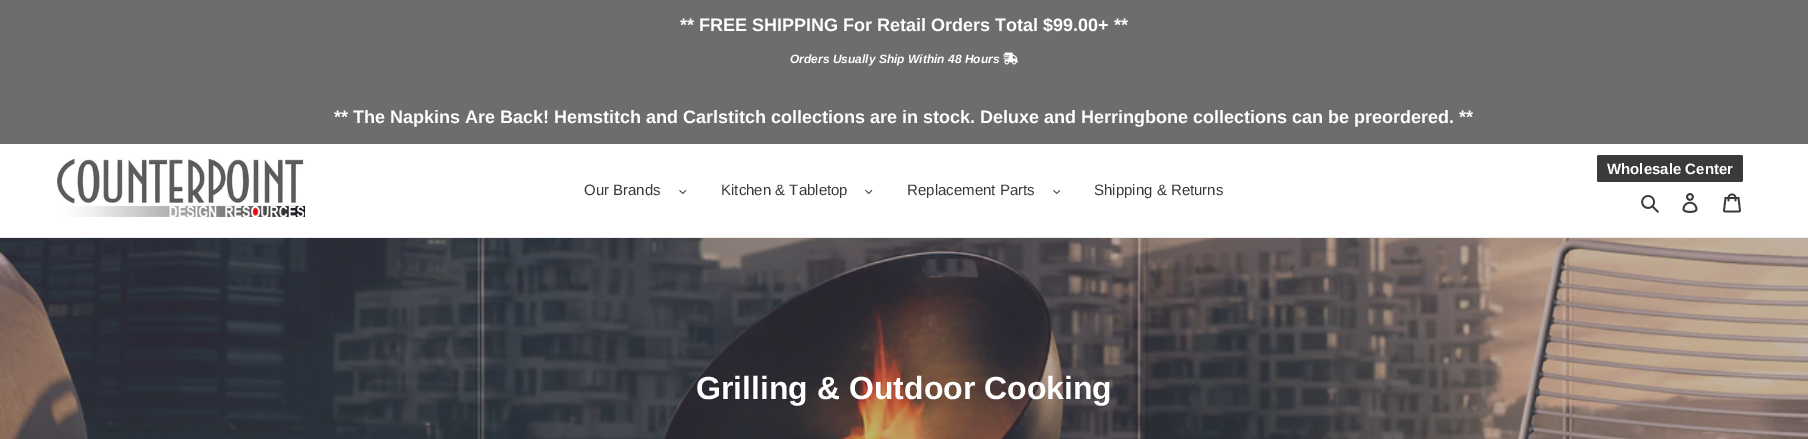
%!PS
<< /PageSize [1808 439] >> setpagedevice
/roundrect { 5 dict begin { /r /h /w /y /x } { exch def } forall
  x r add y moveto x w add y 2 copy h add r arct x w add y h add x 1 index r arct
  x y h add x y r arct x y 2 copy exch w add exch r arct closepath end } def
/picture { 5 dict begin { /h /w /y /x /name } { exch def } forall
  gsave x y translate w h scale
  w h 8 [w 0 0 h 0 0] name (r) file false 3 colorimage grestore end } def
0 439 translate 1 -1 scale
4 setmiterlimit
1 setgray
0 0 1808 439 rectfill
0.427 setgray
0 0 1808 144 rectfill
/LiberationSans-Bold [18 0 0 -18 0 0] selectfont
1 setgray
680 31 moveto (** FREE SHIPPING For Retail Orders Total $99.00+ **) show
/LiberationSans-BoldItalic [12 0 0 -12 0 0] selectfont
790 63 moveto (Orders Usually Ship Within 48 Hours) show
(img1.rgb) 1003 52 15 13 picture
/LiberationSans-Bold [18 0 0 -18 0 0] selectfont
334 123 moveto (** The Napkins Are Back! Hemstitch and Carlstitch collections are in stock. Deluxe and Herringbone collections can be preordered. **) show
0.922 setgray
0 237 1808 1 rectfill
(img2.rgb) 57 159 248 59 picture
0.227 setgray
1597 155 146 27 2 roundrect fill
/LiberationSans-Bold [15 0 0 -15 0 0] selectfont
1 setgray
1607 174 moveto (Wholesale Center) show
(img3.rgb) 1641 195 18 18 picture
(img4.rgb) 1682 193 16 20 picture
(img5.rgb) 1723 193 18 20 picture
/LiberationSans-Regular [15 0 0 -15 0 0] selectfont
0.227 setgray
584 195 moveto (Our Brands) show
(img6.rgb) 679 190 8 4 picture
721 195 moveto (Kitchen & Tabletop) show
(img6.rgb) 865 190 8 4 picture
907 195 moveto (Replacement Parts) show
(img7.rgb) 1053 190 7 4 picture
1094 195 moveto (Shipping & Returns) show
(img8.rgb) 0 238 1808 201 picture
/LiberationSans-Bold [32 0 0 -32 0 0] selectfont
1 setgray
696 399 moveto (Grilling & Outdoor Cooking) show
showpage
